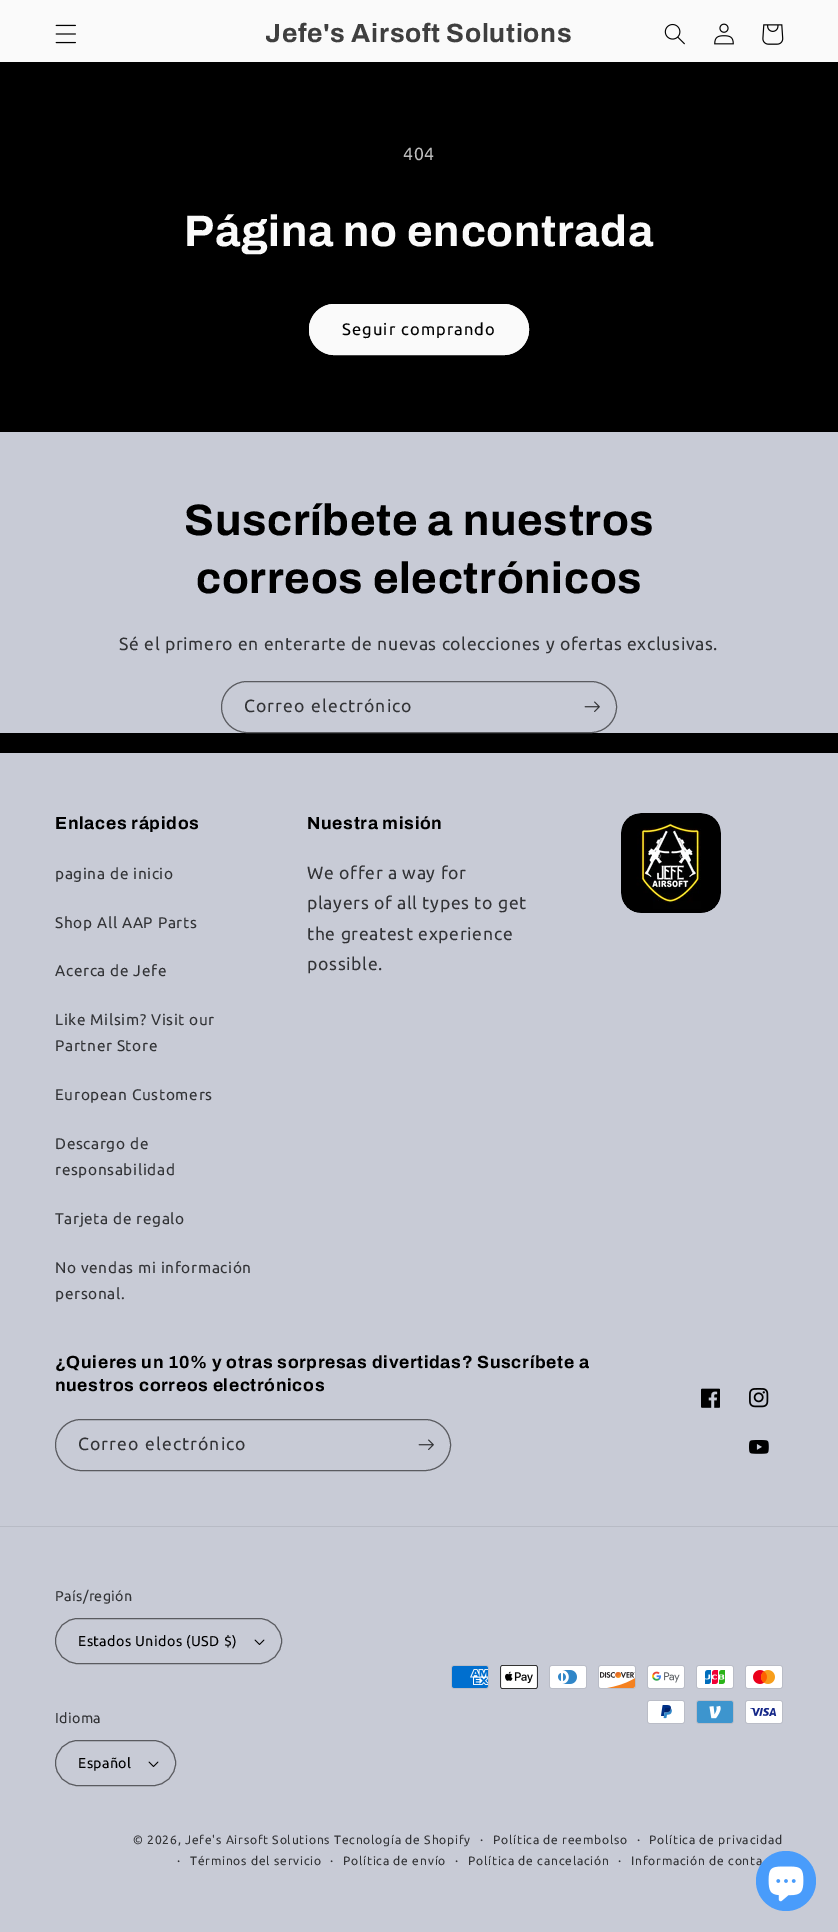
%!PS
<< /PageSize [838 1932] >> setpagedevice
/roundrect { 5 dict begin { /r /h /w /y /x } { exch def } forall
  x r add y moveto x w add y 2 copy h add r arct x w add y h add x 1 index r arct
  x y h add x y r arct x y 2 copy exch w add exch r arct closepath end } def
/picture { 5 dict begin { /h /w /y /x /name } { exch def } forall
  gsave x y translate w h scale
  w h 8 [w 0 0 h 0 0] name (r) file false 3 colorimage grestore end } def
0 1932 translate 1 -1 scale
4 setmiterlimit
0 setgray
0 0 838 1932 rectfill
0.98 setgray
0 0 838 62 rectfill
(img1.rgb) 55 24 21 20 picture
/Archivo-Bold [26.4 0 0 -26.4 0 0] selectfont
0.247 setgray
265 42 moveto 0.65 0 (Jefe's Airsoft Solutions) ashow
(img2.rgb) 664 23 21 22 picture
(img3.rgb) 714 23 20 22 picture
(img4.rgb) 762 24 22 21 picture
/Ubuntu-Regular [17.6 0 0 -17.6 0 0] selectfont
0.737 setgray
403 160 moveto 0.65 0 (404) ashow
/Archivo-Bold [44 0 0 -44 0 0] selectfont
0.98 setgray
184 246 moveto 0.65 0 (Página no encontrada) ashow
309 304 220 51 25.5 roundrect fill
309.5 304.5 219 50 25 roundrect stroke
/Ubuntu-Regular [16.5 0 0 -16.5 0 0] selectfont
0 setgray
342 335 moveto 1.1 0 (Seguir comprando) ashow
0.784 0.796 0.839 setrgbcolor
0 432 838 301 rectfill
/Archivo-Bold [44 0 0 -44 0 0] selectfont
0 setgray
184 535 moveto 0.65 0 (Suscríbete a nuestros) ashow
196 593 moveto 0.65 0 (correos electrónicos) ashow
/Ubuntu-Regular [17.6 0 0 -17.6 0 0] selectfont
0.196 0.2 0.212 setrgbcolor
119 650 moveto 0.65 0 (Sé el primero en enterarte de nuevas colecciones y ofertas exclusivas.) ashow
0.353 0.357 0.376 setrgbcolor
221.5 681.5 395 51 25.5 roundrect stroke
0.196 0.2 0.212 setrgbcolor
244 712 moveto 1.1 0 (Correo electrónico) ashow
(img5.rgb) 584 701 16 11 picture
0.784 0.796 0.839 setrgbcolor
0 753 838 1179 rectfill
/Archivo-Bold [17.6 0 0 -17.6 0 0] selectfont
0 setgray
55 829 moveto 0.65 0 (Enlaces rápidos) ashow
/Ubuntu-Regular [15.4 0 0 -15.4 0 0] selectfont
0.196 0.2 0.212 setrgbcolor
55 879 moveto 0.65 0 (pagina de inicio) ashow
55 928 moveto 0.65 0 (Shop All AAP Parts) ashow
55 976 moveto 0.65 0 (Acerca de Jefe) ashow
55 1025 moveto 0.65 0 (Like Milsim? Visit our) ashow
55 1051 moveto 0.65 0 (Partner Store) ashow
55 1100 moveto 0.65 0 (European Customers) ashow
55 1149 moveto 0.65 0 (Descargo de) ashow
55 1175 moveto 0.65 0 (responsabilidad) ashow
55 1224 moveto 0.65 0 (Tarjeta de regalo) ashow
55 1273 moveto 0.65 0 (No vendas mi información) ashow
55 1299 moveto 0.65 0 (personal.) ashow
/Archivo-Bold [17.6 0 0 -17.6 0 0] selectfont
0 setgray
307 829 moveto 0.65 0 (Nuestra misión) ashow
/Ubuntu-Regular [17.6 0 0 -17.6 0 0] selectfont
0.196 0.2 0.212 setrgbcolor
307 879 moveto 0.65 0 (We offer a way for) ashow
307 909 moveto 0.65 0 (players of all types to get) ashow
307 940 moveto 0.65 0 (the greatest experience) ashow
307 970 moveto 0.65 0 (possible.) ashow
(img6.rgb) 621 813 100 100 picture
/Archivo-Bold [17.6 0 0 -17.6 0 0] selectfont
0 setgray
55 1368 moveto 0.65 0 (¿Quieres un 10% y otras sorpresas divertidas? Suscríbete a) ashow
55 1391 moveto 0.65 0 (nuestros correos electrónicos) ashow
0.353 0.357 0.376 setrgbcolor
55.5 1419.5 395 51 25.5 roundrect stroke
/Ubuntu-Regular [17.6 0 0 -17.6 0 0] selectfont
0.196 0.2 0.212 setrgbcolor
78 1450 moveto 1.1 0 (Correo electrónico) ashow
(img5.rgb) 418 1439 16 11 picture
(img7.rgb) 701 1388 19 20 picture
(img8.rgb) 749 1388 20 20 picture
(img9.rgb) 749 1440 20 14 picture
0.722 0.733 0.773 setrgbcolor
0 1526 838 1 rectfill
/Ubuntu-Regular [14.25 0 0 -14.25 0 0] selectfont
0.196 0.2 0.212 setrgbcolor
55 1601 moveto 0.4 0 (País/región) ashow
(img10.rgb) 254 1639 11 6 picture
0.353 0.357 0.376 setrgbcolor
55.5 1618.5 226 45 22.5 roundrect stroke
0 setgray
78 1646 moveto 0.4 0 (Estados Unidos \(USD $\)) ashow
0.196 0.2 0.212 setrgbcolor
55 1723 moveto 0.4 0 (Idioma) ashow
(img10.rgb) 148 1761 11 6 picture
0.353 0.357 0.376 setrgbcolor
55.5 1740.5 120 45 22.5 roundrect stroke
0 setgray
78 1768 moveto 0.4 0 (Español) ashow
(img11.rgb) 451 1665 38 24 picture
(img12.rgb) 500 1665 38 24 picture
(img13.rgb) 549 1665 38 24 picture
(img14.rgb) 598 1665 38 24 picture
(img15.rgb) 647 1665 38 24 picture
(img16.rgb) 696 1665 38 24 picture
(img17.rgb) 745 1665 38 24 picture
(img18.rgb) 647 1700 38 24 picture
(img19.rgb) 696 1700 38 24 picture
(img20.rgb) 745 1700 38 24 picture
/Ubuntu-Regular [12.1 0 0 -12.1 0 0] selectfont
0.196 0.2 0.212 setrgbcolor
133 1844 moveto 0.77 0 (© 2026, Jefe's Airsoft Solutions Tecnología de Shopify) ashow
/Ubuntu-Regular [13 0 0 -13 0 0] selectfont
480 1844 moveto 0.77 0 (·) ashow
/Ubuntu-Regular [12.1 0 0 -12.1 0 0] selectfont
493 1844 moveto 0.77 0 (Política de reembolso) ashow
/Ubuntu-Regular [13 0 0 -13 0 0] selectfont
637 1844 moveto 0.77 0 (·) ashow
/Ubuntu-Regular [12.1 0 0 -12.1 0 0] selectfont
649 1844 moveto 0.77 0 (Política de privacidad) ashow
/Ubuntu-Regular [13 0 0 -13 0 0] selectfont
177 1865 moveto 0.77 0 (·) ashow
/Ubuntu-Regular [12.1 0 0 -12.1 0 0] selectfont
190 1865 moveto 0.77 0 (Términos del servicio) ashow
/Ubuntu-Regular [13 0 0 -13 0 0] selectfont
330 1865 moveto 0.77 0 (·) ashow
/Ubuntu-Regular [12.1 0 0 -12.1 0 0] selectfont
343 1865 moveto 0.77 0 (Política de envío) ashow
/Ubuntu-Regular [13 0 0 -13 0 0] selectfont
455 1865 moveto 0.77 0 (·) ashow
/Ubuntu-Regular [12.1 0 0 -12.1 0 0] selectfont
468 1865 moveto 0.77 0 (Política de cancelación) ashow
/Ubuntu-Regular [13 0 0 -13 0 0] selectfont
618 1865 moveto 0.77 0 (·) ashow
/Ubuntu-Regular [12.1 0 0 -12.1 0 0] selectfont
631 1865 moveto 0.77 0 (Información de conta) ashow
0.286 0.612 0.984 setrgbcolor
newpath 786 1881 30 0 360 arc closepath fill
(img21.rgb) 768 1866 36 36 picture
showpage
